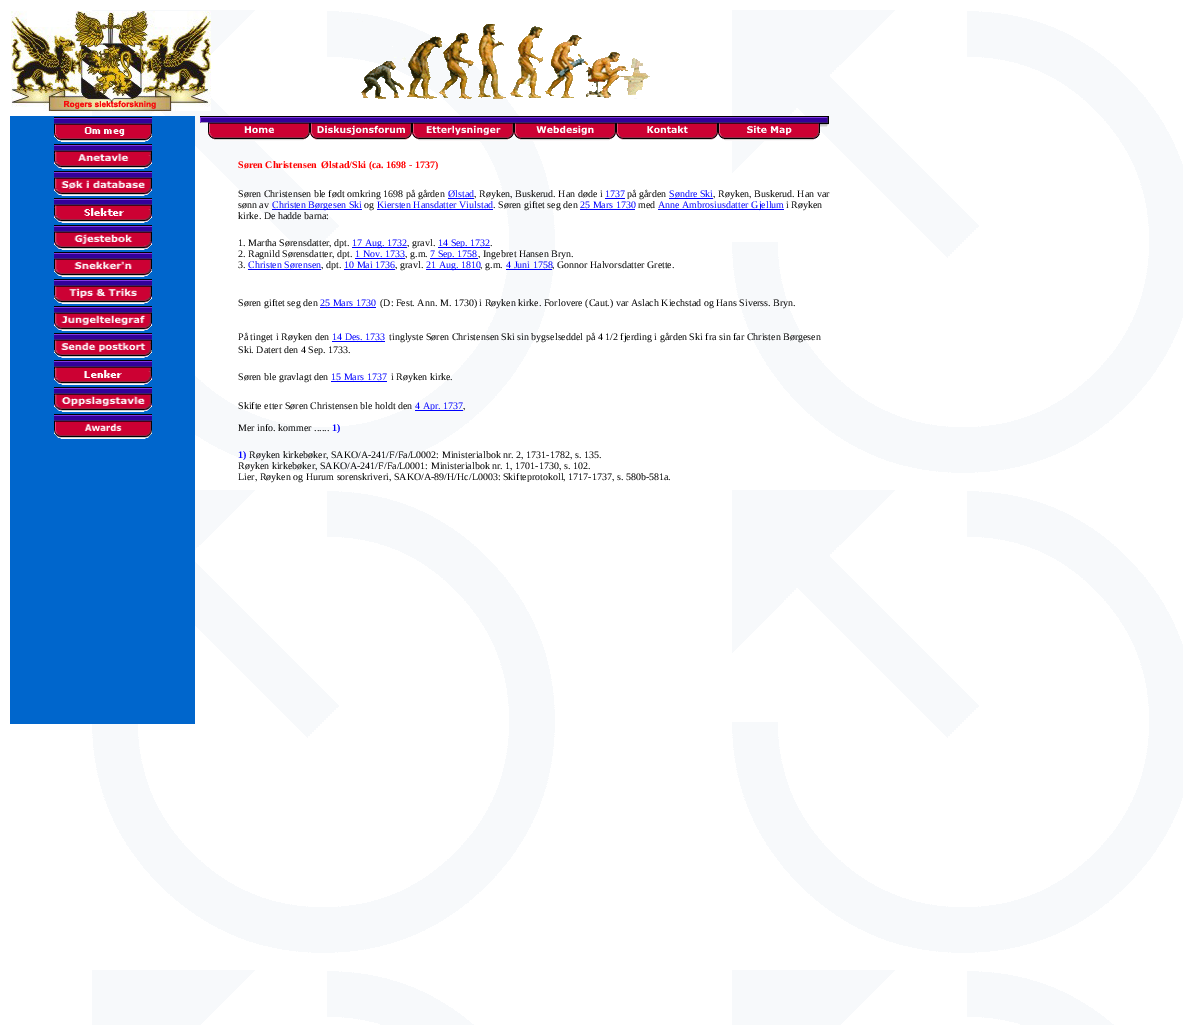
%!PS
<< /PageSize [1183 1025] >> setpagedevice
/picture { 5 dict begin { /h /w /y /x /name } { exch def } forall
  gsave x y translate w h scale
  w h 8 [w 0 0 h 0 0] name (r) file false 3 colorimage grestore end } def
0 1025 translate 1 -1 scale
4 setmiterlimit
1 setgray
0 0 1183 1025 rectfill
(img1.rgb) 92 10 1091 1015 picture
(img2.rgb) 11 11 200 100 picture
(img3.rgb) 200 116 8 7 picture
(img4.rgb) 208 116 102 25 picture
(img5.rgb) 310 116 102 24 picture
(img6.rgb) 412 116 102 25 picture
(img7.rgb) 514 116 102 25 picture
(img8.rgb) 616 116 102 24 picture
(img9.rgb) 718 116 102 25 picture
(img10.rgb) 820 116 9 11 picture
(img11.rgb) 357 19 293 80 picture
0 0.4 0.8 setrgbcolor
10 116 185 608 rectfill
(img12.rgb) 54 117 98 25 picture
(img13.rgb) 54 144 98 25 picture
(img14.rgb) 54 171 98 25 picture
(img15.rgb) 54 198 98 25 picture
(img16.rgb) 54 225 98 25 picture
(img17.rgb) 54 252 98 25 picture
(img18.rgb) 54 279 98 25 picture
(img19.rgb) 54 306 98 25 picture
(img20.rgb) 54 333 98 25 picture
(img21.rgb) 54 360 98 25 picture
(img22.rgb) 54 387 98 25 picture
(img23.rgb) 54 414 98 25 picture
/LiberationSerif-Bold [10 0 0 -10 0 0] selectfont
1 0 0 setrgbcolor
238 168 moveto (Søren Christensen) show
321 168 moveto (Ølstad/Ski \(ca. 1698 - 1737\)) show
/LiberationSerif-Regular [10 0 0 -10 0 0] selectfont
0 setgray
238 197 moveto (Søren Christensen ble født omkring 1698 på gården) show
0 0 1 setrgbcolor
448 197 moveto (Ølstad) show
0 setgray
474 197 moveto (, Røyken, Buskerud. Han døde i) show
0 0 1 setrgbcolor
448 198 26 1 rectfill
605 197 moveto (1737) show
605 198 20 1 rectfill
0 setgray
627 197 moveto (på gården) show
0 0 1 setrgbcolor
669 197 moveto (Søndre Ski) show
0 setgray
713 197 moveto (, Røyken, Buskerud. Han var) show
0 0 1 setrgbcolor
669 198 44 1 rectfill
0 setgray
238 208 moveto (sønn av) show
0 0 1 setrgbcolor
272 209 90 1 rectfill
272 208 moveto (Christen Børgesen Ski) show
0 setgray
364 208 moveto (og) show
0 0 1 setrgbcolor
377 208 moveto (Kiersten Hansdatter Viulstad) show
0 setgray
493 208 moveto (. Søren giftet seg den) show
0 0 1 setrgbcolor
377 209 116 1 rectfill
580 208 moveto (25 Mars 1730) show
580 209 55 1 rectfill
0 setgray
638 208 moveto (med) show
0 0 1 setrgbcolor
658 209 126 1 rectfill
658 208 moveto (Anne Ambrosiusdatter Gjellum) show
0 setgray
786 208 moveto (i Røyken) show
238 219 moveto (kirke. De hadde barna:) show
238 246 moveto (1. Martha Sørensdatter, dpt.) show
0 0 1 setrgbcolor
352 247 55 1 rectfill
352 246 moveto (17 Aug. 1732) show
0 setgray
407 246 moveto (, gravl.) show
0 0 1 setrgbcolor
438 247 52 1 rectfill
438 246 moveto (14 Sep. 1732) show
0 setgray
490 246 moveto (.) show
238 257 moveto (2. Ragnild Sørensdatter, dpt.) show
0 0 1 setrgbcolor
355 257 moveto (1 Nov. 1733) show
0 setgray
405 257 moveto (, g.m.) show
0 0 1 setrgbcolor
355 258 50 1 rectfill
430 258 48 1 rectfill
430 257 moveto (7 Sep. 1758) show
0 setgray
478 257 moveto (, Ingebret Hansen Bryn.) show
238 268 moveto (3.) show
0 0 1 setrgbcolor
248 268 moveto (Christen Sørensen) show
0 setgray
321 268 moveto (, dpt.) show
0 0 1 setrgbcolor
248 269 73 1 rectfill
344 268 moveto (10 Mai 1736) show
0 setgray
395 268 moveto (, gravl.) show
0 0 1 setrgbcolor
344 269 51 1 rectfill
426 269 54 1 rectfill
426 268 moveto (21 Aug. 1810) show
0 setgray
480 268 moveto (, g.m.) show
0 0 1 setrgbcolor
506 268 moveto (4 Juni 1758) show
0 setgray
552 268 moveto (, Gonnor Halvorsdatter Grette.) show
0 0 1 setrgbcolor
506 269 46 1 rectfill
0 setgray
238 306 moveto (Søren giftet seg den) show
0 0 1 setrgbcolor
320 306 moveto (25 Mars 1730) show
320 307 56 1 rectfill
0 setgray
380 306 moveto (\(D: Fest. Ann. M. 1730\) i Røyken kirke. Forlovere \(Caut.\) var Aslach Kiechstad og Hans Siverss. Bryn.) show
238 340 moveto (På tinget i Røyken den) show
0 0 1 setrgbcolor
332 340 moveto (14 Des. 1733) show
332 341 53 1 rectfill
0 setgray
389 340 moveto (tinglyste Søren Christensen Ski sin bygselseddel på 4 1/2 fjerding i gården Ski fra sin far Christen Børgesen) show
238 353 moveto (Ski. Datert den 4 Sep. 1733.) show
238 380 moveto (Søren ble gravlagt den) show
0 0 1 setrgbcolor
331 380 moveto (15 Mars 1737) show
331 381 56 1 rectfill
0 setgray
391 380 moveto (i Røyken kirke.) show
238 409 moveto (Skifte etter Søren Christensen ble holdt den) show
0 0 1 setrgbcolor
415 410 48 1 rectfill
415 409 moveto (4 Apr. 1737) show
0 setgray
463 409 moveto (,) show
238 431 moveto (Mer info. kommer ......) show
/LiberationSerif-Bold [10 0 0 -10 0 0] selectfont
0 0 1 setrgbcolor
332 431 moveto (1\)) show
238 458 moveto (1\)) show
/LiberationSerif-Regular [10 0 0 -10 0 0] selectfont
0 setgray
249 458 moveto (Røyken kirkebøker, SAKO/A-241/F/Fa/L0002: Ministerialbok nr. 2, 1731-1782, s. 135.) show
238 469 moveto (Røyken kirkebøker, SAKO/A-241/F/Fa/L0001: Ministerialbok nr. 1, 1701-1730, s. 102.) show
238 480 moveto (Lier, Røyken og Hurum sorenskriveri, SAKO/A-89/H/Hc/L0003: Skifteprotokoll, 1717-1737, s. 580b-581a.) show
showpage
